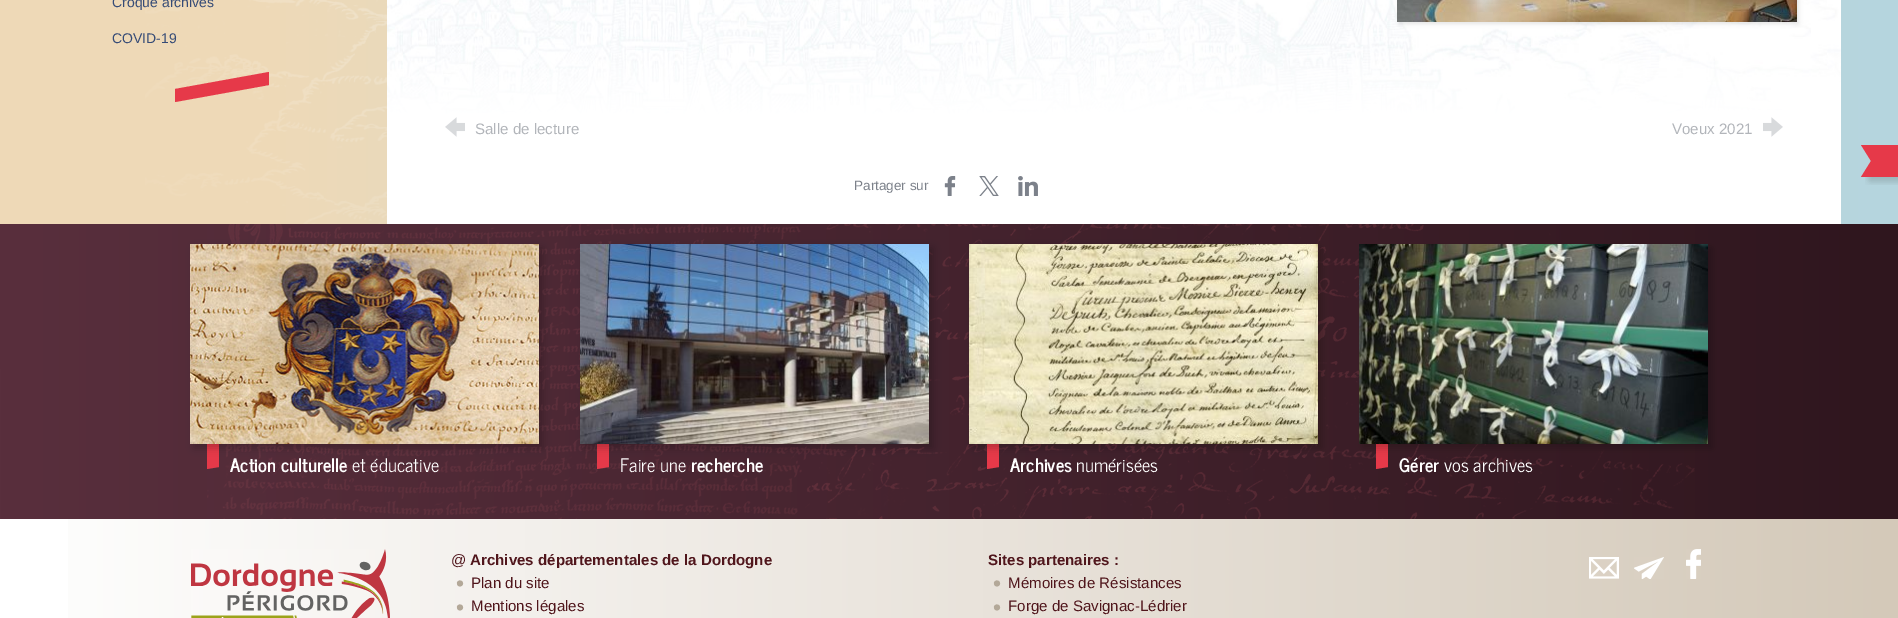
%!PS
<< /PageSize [1898 618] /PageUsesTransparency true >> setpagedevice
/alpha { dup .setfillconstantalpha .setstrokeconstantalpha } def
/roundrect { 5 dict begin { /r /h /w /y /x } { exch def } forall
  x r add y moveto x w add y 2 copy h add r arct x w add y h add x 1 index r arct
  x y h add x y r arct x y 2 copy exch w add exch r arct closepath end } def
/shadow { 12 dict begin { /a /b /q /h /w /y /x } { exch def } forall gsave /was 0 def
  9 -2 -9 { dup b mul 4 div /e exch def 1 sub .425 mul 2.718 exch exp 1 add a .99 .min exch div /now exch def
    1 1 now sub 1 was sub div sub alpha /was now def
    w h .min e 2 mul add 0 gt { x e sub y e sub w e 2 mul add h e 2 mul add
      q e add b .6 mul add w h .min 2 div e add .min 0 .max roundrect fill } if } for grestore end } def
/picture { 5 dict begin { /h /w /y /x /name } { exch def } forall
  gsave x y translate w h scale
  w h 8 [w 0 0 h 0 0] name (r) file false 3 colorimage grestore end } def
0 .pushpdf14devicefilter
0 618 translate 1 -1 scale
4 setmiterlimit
1 setgray
0 0 1898 618 rectfill
gsave newpath 0 0 moveto 1898 0 lineto 1898 224 lineto 0 224 lineto closepath clip newpath
<< /ShadingType 2 /ColorSpace /DeviceRGB /Coords [0 62 1898 61] /Extend [true true] /Function << /FunctionType 3 /Domain [0 1] /Functions [<< /FunctionType 2 /Domain [0 1] /C0 [0.933 0.851 0.718] /C1 [0.933 0.851 0.718] /N 1 >> << /FunctionType 2 /Domain [0 1] /C0 [0.933 0.851 0.718] /C1 [0.71 0.835 0.875] /N 1 >>] /Bounds [0.14] /Encode [0 1 0 1] >> >> shfill grestore
(img1.rgb) 145 0 242 224 picture
/LiberationSans-Regular [14 0 0 -14 0 0] selectfont
0.208 0.294 0.463 setrgbcolor
112 7 moveto (Croque archives) show
112 43 moveto (COVID-19) show
0.902 0.224 0.286 setrgbcolor
newpath 175 89 moveto 269 72 lineto 269 85 lineto 175 102 lineto closepath eofill
(img2.rgb) 387 0 1454 117 picture
0 setgray
1399 -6 400 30 0 2 0.1 shadow
(img3.rgb) 1397 0 400 22 picture
1 setgray
387 117 1454 107 rectfill
(img4.rgb) 445 117 20 20 picture
/LiberationSans-Regular [15.1 0 0 -15.1 0 0] selectfont
0.698 0.71 0.729 setrgbcolor
475 134 moveto (Salle de lecture) show
1672 134 moveto (Voeux 2021) show
(img5.rgb) 1763 117 20 20 picture
/LiberationSans-Regular [13.5 0 0 -13.5 0 0] selectfont
0.486 0.506 0.541 setrgbcolor
854 190 moveto (Partager sur) show
(img6.rgb) 944 176 12 20 picture
(img7.rgb) 979 176 20 20 picture
(img8.rgb) 1018 176 20 20 picture
gsave
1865 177 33 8 rectclip
0 setgray
1868 150 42 32 3 3 0.15 shadow
grestore
0.902 0.224 0.286 setrgbcolor
newpath 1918 177 moveto 1861 177 lineto 1871 161 lineto 1861 145 lineto 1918 145 lineto closepath fill
gsave newpath 0 224 moveto 1898 224 lineto 1898 519 lineto 0 519 lineto closepath clip newpath
<< /ShadingType 2 /ColorSpace /DeviceRGB /Coords [1898 371 0 372] /Extend [true true] /Function << /FunctionType 2 /Domain [0 1] /C0 [0.184 0.086 0.118] /C1 [0.349 0.184 0.239] /N 1 >> >> shfill grestore
(img9.rgb) 207 224 1488 295 picture
newpath 207 424 moveto 219 424 lineto 219 467 lineto 207 469 lineto closepath eofill
0 setgray
194 248 349 200 0 4 0.2 shadow
(img10.rgb) 190 244 349 200 picture
/NewsCycle-Bold [18.5 0 0 -18.5 0 0] selectfont
1 setgray
230 472 moveto (Action culturelle) show
/NewsCycle-Regular [18.5 0 0 -18.5 0 0] selectfont
352 472 moveto (et éducative) show
0.902 0.224 0.286 setrgbcolor
newpath 597 424 moveto 609 424 lineto 609 467 lineto 597 469 lineto closepath eofill
0 setgray
584 248 349 200 0 4 0.2 shadow
(img11.rgb) 580 244 349 200 picture
1 setgray
620 472 moveto (Faire une) show
/NewsCycle-Bold [18.5 0 0 -18.5 0 0] selectfont
691 472 moveto (recherche) show
0.902 0.224 0.286 setrgbcolor
newpath 987 424 moveto 999 424 lineto 999 467 lineto 987 469 lineto closepath eofill
0 setgray
973 248 349 200 0 4 0.2 shadow
(img12.rgb) 969 244 349 200 picture
1 setgray
1010 472 moveto (Archives) show
/NewsCycle-Regular [18.5 0 0 -18.5 0 0] selectfont
1076 472 moveto (numérisées) show
0.902 0.224 0.286 setrgbcolor
newpath 1376 424 moveto 1388 424 lineto 1388 467 lineto 1376 469 lineto closepath eofill
0 setgray
1363 248 349 200 0 4 0.2 shadow
(img13.rgb) 1359 244 349 200 picture
/NewsCycle-Bold [18.5 0 0 -18.5 0 0] selectfont
1 setgray
1399 472 moveto (Gérer) show
/NewsCycle-Regular [18.5 0 0 -18.5 0 0] selectfont
1444 472 moveto (vos archives) show
gsave newpath 68 519 moveto 1898 519 lineto 1898 618 lineto 68 618 lineto closepath clip newpath
<< /ShadingType 2 /ColorSpace /DeviceRGB /Coords [1898 616 0 617] /Extend [true true] /Function << /FunctionType 2 /Domain [0 1] /C0 [0.831 0.788 0.725] /C1 [1 1 1] /N 1 >> >> shfill grestore
(img14.rgb) 191 549 199 69 picture
/LiberationSans-Regular [15.1 0 0 -15.1 0 0] selectfont
0.314 0.086 0.11 setrgbcolor
451 565 moveto (@) show
/LiberationSans-Bold [15.1 0 0 -15.1 0 0] selectfont
470 565 moveto (Archives départementales de la Dordogne) show
/LiberationSans-Regular [23 0 0 -23 0 0] selectfont
0.702 0.659 0.596 setrgbcolor
456 591 moveto (•) show
/LiberationSans-Regular [15.1 0 0 -15.1 0 0] selectfont
0.314 0.086 0.11 setrgbcolor
471 588 moveto (Plan du site) show
/LiberationSans-Regular [23 0 0 -23 0 0] selectfont
0.702 0.659 0.596 setrgbcolor
456 615 moveto (•) show
/LiberationSans-Regular [15.1 0 0 -15.1 0 0] selectfont
0.314 0.086 0.11 setrgbcolor
471 611 moveto (Mentions légales) show
/LiberationSans-Bold [15.1 0 0 -15.1 0 0] selectfont
988 565 moveto (Sites partenaires :) show
/LiberationSans-Regular [23 0 0 -23 0 0] selectfont
0.702 0.659 0.596 setrgbcolor
993 591 moveto (•) show
/LiberationSans-Regular [15.1 0 0 -15.1 0 0] selectfont
0.314 0.086 0.11 setrgbcolor
1008 588 moveto (Mémoires de Résistances) show
/LiberationSans-Regular [23 0 0 -23 0 0] selectfont
0.702 0.659 0.596 setrgbcolor
993 615 moveto (•) show
/LiberationSans-Regular [15.1 0 0 -15.1 0 0] selectfont
0.314 0.086 0.11 setrgbcolor
1008 611 moveto (Forge de Savignac-Lédrier) show
(img15.rgb) 1589 557 30 22 picture
(img16.rgb) 1634 557 30 22 picture
(img17.rgb) 1686 549 15 30 picture
.poppdf14devicefilter showpage
